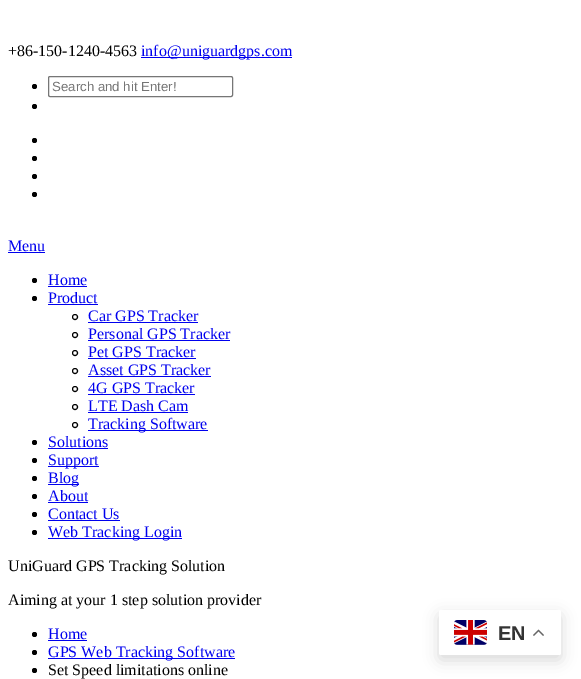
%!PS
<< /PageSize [581 679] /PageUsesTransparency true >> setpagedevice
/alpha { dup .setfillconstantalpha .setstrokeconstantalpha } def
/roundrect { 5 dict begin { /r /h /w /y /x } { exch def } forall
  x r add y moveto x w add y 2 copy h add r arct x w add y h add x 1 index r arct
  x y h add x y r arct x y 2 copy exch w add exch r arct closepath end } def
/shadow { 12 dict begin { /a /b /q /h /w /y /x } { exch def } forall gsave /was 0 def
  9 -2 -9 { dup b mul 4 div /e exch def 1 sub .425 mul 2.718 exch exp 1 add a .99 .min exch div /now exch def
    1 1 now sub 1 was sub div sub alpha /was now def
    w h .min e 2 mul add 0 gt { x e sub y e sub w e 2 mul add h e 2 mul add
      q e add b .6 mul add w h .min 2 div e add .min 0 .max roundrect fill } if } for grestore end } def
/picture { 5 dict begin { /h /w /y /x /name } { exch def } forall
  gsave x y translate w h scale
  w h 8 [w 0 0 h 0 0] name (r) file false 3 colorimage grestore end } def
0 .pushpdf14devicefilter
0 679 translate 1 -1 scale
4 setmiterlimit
1 setgray
0 0 581 679 rectfill
/LiberationSerif-Regular [16 0 0 -16 0 0] selectfont
0 setgray
8 56 moveto (+86-150-1240-4563) show
0 0 0.933 setrgbcolor
141 57 151 1 rectfill
141 56 moveto (info@uniguardgps.com) show
0 setgray
newpath 34.5 86.5 2.5 0 360 arc closepath fill
0.463 setgray
48.5 76.5 184 20 1.5 roundrect stroke
/LiberationSans-Regular [13.25 0 0 -13.25 0 0] selectfont
0.459 setgray
52 91 moveto (Search and hit Enter!) show
0 setgray
newpath 34.5 106.5 2.5 0 360 arc closepath fill
newpath 34.5 140.5 2.5 0 360 arc closepath fill
newpath 34.5 158.5 2.5 0 360 arc closepath fill
newpath 34.5 176.5 2.5 0 360 arc closepath fill
newpath 34.5 194.5 2.5 0 360 arc closepath fill
/LiberationSerif-Regular [16 0 0 -16 0 0] selectfont
0 0 0.933 setrgbcolor
8 251 moveto (Menu) show
8 252 37 1 rectfill
0 setgray
newpath 34.5 280.5 2.5 0 360 arc closepath fill
0 0 0.933 setrgbcolor
48 285 moveto (Home) show
48 286 39 1 rectfill
0 setgray
newpath 34.5 298.5 2.5 0 360 arc closepath fill
0 0 0.933 setrgbcolor
48 303 moveto (Product) show
48 304 50 1 rectfill
0 setgray
newpath 75 317 2.5 0 360 arc closepath stroke
0 0 0.933 setrgbcolor
88 321 moveto (Car GPS Tracker) show
88 322 110 1 rectfill
0 setgray
newpath 75 335 2.5 0 360 arc closepath stroke
0 0 0.933 setrgbcolor
88 339 moveto (Personal GPS Tracker) show
88 340 142 1 rectfill
0 setgray
newpath 75 353 2.5 0 360 arc closepath stroke
0 0 0.933 setrgbcolor
88 357 moveto (Pet GPS Tracker) show
88 358 108 1 rectfill
0 setgray
newpath 75 371 2.5 0 360 arc closepath stroke
0 0 0.933 setrgbcolor
88 375 moveto (Asset GPS Tracker) show
88 376 123 1 rectfill
0 setgray
newpath 75 389 2.5 0 360 arc closepath stroke
0 0 0.933 setrgbcolor
88 393 moveto (4G GPS Tracker) show
88 394 107 1 rectfill
0 setgray
newpath 75 407 2.5 0 360 arc closepath stroke
0 0 0.933 setrgbcolor
88 411 moveto (LTE Dash Cam) show
88 412 100 1 rectfill
0 setgray
newpath 75 425 2.5 0 360 arc closepath stroke
0 0 0.933 setrgbcolor
88 430 120 1 rectfill
88 429 moveto (Tracking Software) show
0 setgray
newpath 34.5 442.5 2.5 0 360 arc closepath fill
0 0 0.933 setrgbcolor
48 447 moveto (Solutions) show
48 448 60 1 rectfill
0 setgray
newpath 34.5 460.5 2.5 0 360 arc closepath fill
0 0 0.933 setrgbcolor
48 466 51 1 rectfill
48 465 moveto (Support) show
0 setgray
newpath 34.5 478.5 2.5 0 360 arc closepath fill
0 0 0.933 setrgbcolor
48 484 31 1 rectfill
48 483 moveto (Blog) show
0 setgray
newpath 34.5 496.5 2.5 0 360 arc closepath fill
0 0 0.933 setrgbcolor
48 501 moveto (About) show
48 502 40 1 rectfill
0 setgray
newpath 34.5 514.5 2.5 0 360 arc closepath fill
0 0 0.933 setrgbcolor
48 519 moveto (Contact Us) show
48 520 72 1 rectfill
0 setgray
newpath 34.5 532.5 2.5 0 360 arc closepath fill
0 0 0.933 setrgbcolor
48 538 134 1 rectfill
48 537 moveto (Web Tracking Login) show
0 setgray
8 571 moveto (UniGuard GPS Tracking Solution) show
8 605 moveto (Aiming at your 1 step solution provider) show
newpath 34.5 634.5 2.5 0 360 arc closepath fill
0 0 0.933 setrgbcolor
48 639 moveto (Home) show
48 640 39 1 rectfill
0 setgray
newpath 34.5 652.5 2.5 0 360 arc closepath fill
0 0 0.933 setrgbcolor
48 658 187 1 rectfill
48 657 moveto (GPS Web Tracking Software) show
0 setgray
newpath 34.5 670.5 2.5 0 360 arc closepath fill
48 675 moveto (Set Speed limitations online) show
439 615 122 45 2 7.5 0.15 shadow
1 setgray
439 610 122 45 2 roundrect fill
(img1.rgb) 454 620 33 25 picture
/LiberationSans-Bold [20 0 0 -20 0 0] selectfont
0.2 setgray
498 640 moveto (EN) show
(img2.rgb) 533 629 11 7 picture
.poppdf14devicefilter showpage
